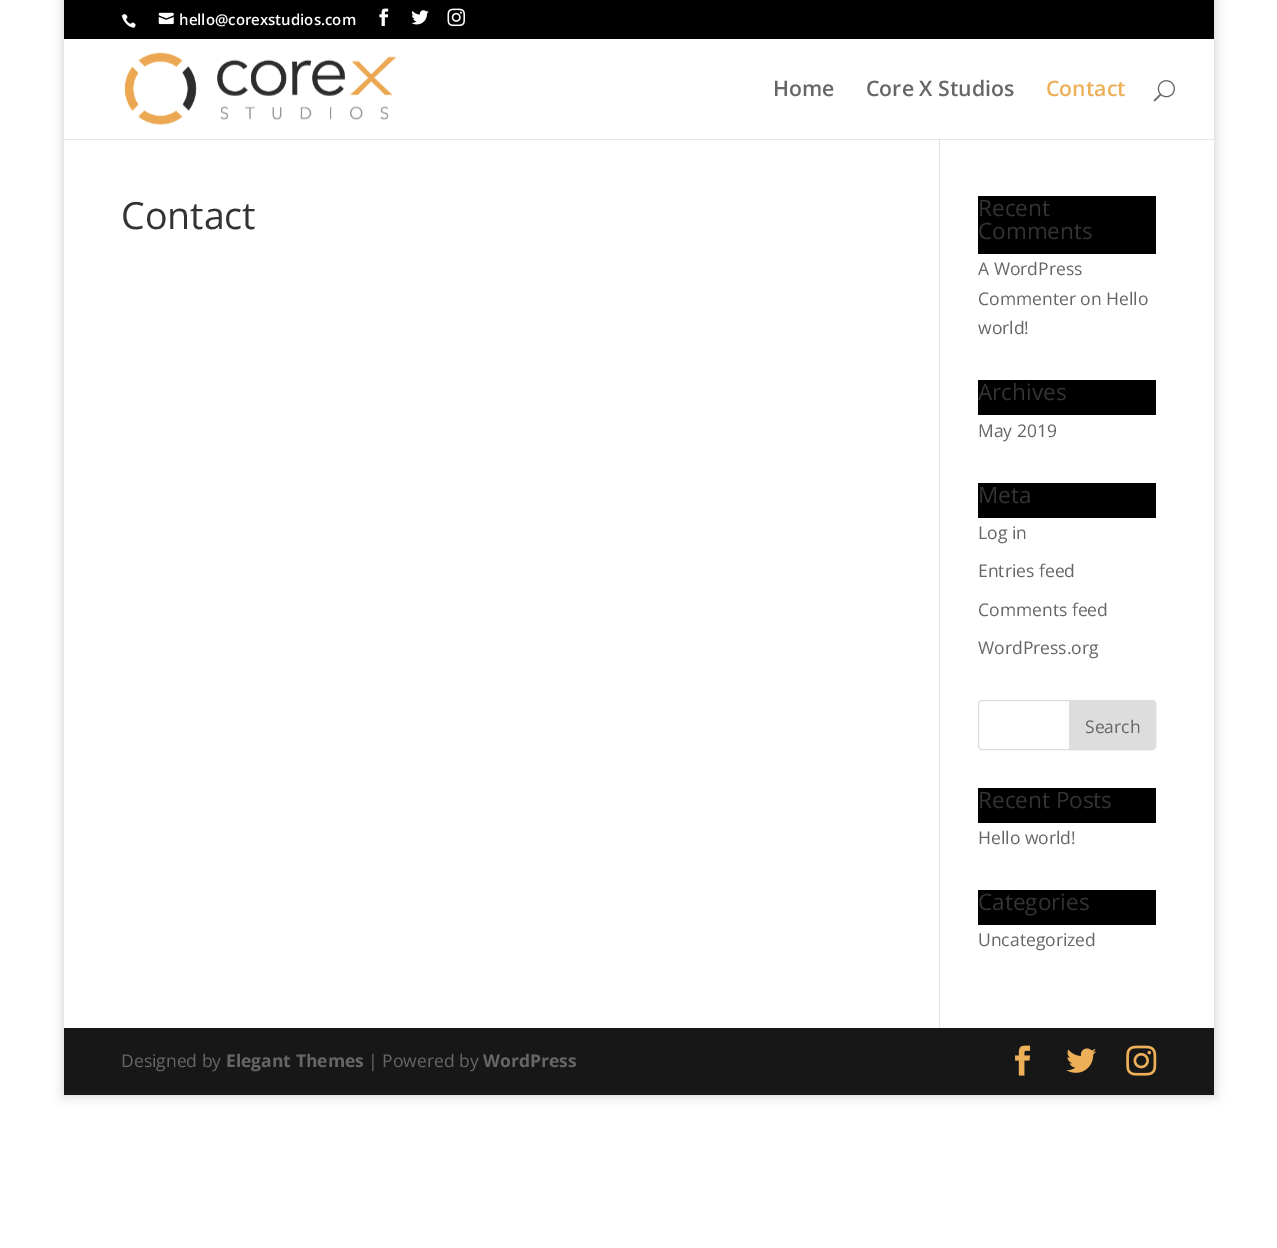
%!PS
<< /PageSize [1277 1248] /PageUsesTransparency true >> setpagedevice
/alpha { dup .setfillconstantalpha .setstrokeconstantalpha } def
/roundrect { 5 dict begin { /r /h /w /y /x } { exch def } forall
  x r add y moveto x w add y 2 copy h add r arct x w add y h add x 1 index r arct
  x y h add x y r arct x y 2 copy exch w add exch r arct closepath end } def
/shadow { 12 dict begin { /a /b /q /h /w /y /x } { exch def } forall gsave /was 0 def
  9 -2 -9 { dup b mul 4 div /e exch def 1 sub .425 mul 2.718 exch exp 1 add a .99 .min exch div /now exch def
    1 1 now sub 1 was sub div sub alpha /was now def
    w h .min e 2 mul add 0 gt { x e sub y e sub w e 2 mul add h e 2 mul add
      q e add b .6 mul add w h .min 2 div e add .min 0 .max roundrect fill } if } for grestore end } def
/picture { 5 dict begin { /h /w /y /x /name } { exch def } forall
  gsave x y translate w h scale
  w h 8 [w 0 0 h 0 0] name (r) file false 3 colorimage grestore end } def
0 .pushpdf14devicefilter
0 1248 translate 1 -1 scale
4 setmiterlimit
1 setgray
0 0 1277 1248 rectfill
0 setgray
64 -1 1150 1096 0 6 0.2 shadow
64 0 1150 39 rectfill
(img1.rgb) 121 14 15 14 picture
(img2.rgb) 158 12 16 13 picture
/OpenSans-SemiBold [15 0 0 -15 0 0] selectfont
1 setgray
179 25 moveto (hello@corexstudios.com) show
(img3.rgb) 379 8 10 19 picture
(img4.rgb) 411 10 18 15 picture
(img5.rgb) 447 8 18 19 picture
64 39 1150 989 rectfill
0.886 setgray
939 139 1 889 rectfill
0.1 alpha
0 setgray
newpath 64 139 moveto 64 140 lineto 1214 140 lineto 1214 40 lineto 1214 139 lineto closepath fill
1 alpha
(img6.rgb) 124 52 272 73 picture
/OpenSans-SemiBold [21.25 0 0 -21.25 0 0] selectfont
0.4 setgray
773 96 moveto (Home) show
866 96 moveto (Core X Studios) show
0.929 0.69 0.349 setrgbcolor
1046 96 moveto (Contact) show
(img7.rgb) 1153 80 22 22 picture
/OpenSans-Regular [37.5 0 0 -37.5 0 0] selectfont
0.2 setgray
121 229 moveto (Contact) show
0 setgray
978 196 178 58 rectfill
/OpenSans-Regular [22.5 0 0 -22.5 0 0] selectfont
0.2 setgray
978 216 moveto (Recent) show
978 239 moveto (Comments) show
/OpenSans-Regular [17.5 0 0 -17.5 0 0] selectfont
0.4 setgray
978 275 moveto (A WordPress) show
978 305 moveto (Commenter on Hello) show
978 334 moveto (world!) show
0 setgray
978 380 178 35 rectfill
/OpenSans-Regular [22.5 0 0 -22.5 0 0] selectfont
0.2 setgray
978 400 moveto (Archives) show
/OpenSans-Regular [17.5 0 0 -17.5 0 0] selectfont
0.4 setgray
978 437 moveto (May 2019) show
0 setgray
978 483 178 35 rectfill
/OpenSans-Regular [22.5 0 0 -22.5 0 0] selectfont
0.2 setgray
978 503 moveto (Meta) show
/OpenSans-Regular [17.5 0 0 -17.5 0 0] selectfont
0.4 setgray
978 539 moveto (Log in) show
978 577 moveto (Entries feed) show
978 616 moveto (Comments feed) show
978 654 moveto (WordPress.org) show
0.867 setgray
978.5 700.5 177 49 3.5 roundrect stroke
newpath 1069.5 700.5 moveto 1152 700.5 lineto 1154 700.5 1155.5 702 1155.5 704 curveto 1155.5 746 lineto 1155.5 748 1154 749.5 1152 749.5 curveto 1069.5 749.5 lineto closepath gsave fill grestore
stroke
0.4 setgray
1085 733 moveto (Search) show
0 setgray
978 788 178 35 rectfill
/OpenSans-Regular [22.5 0 0 -22.5 0 0] selectfont
0.2 setgray
978 808 moveto (Recent Posts) show
/OpenSans-Regular [17.5 0 0 -17.5 0 0] selectfont
0.4 setgray
978 844 moveto (Hello world!) show
0 setgray
978 890 178 35 rectfill
/OpenSans-Regular [22.5 0 0 -22.5 0 0] selectfont
0.2 setgray
978 910 moveto (Categories) show
/OpenSans-Regular [17.5 0 0 -17.5 0 0] selectfont
0.4 setgray
978 946 moveto (Uncategorized) show
0.09 setgray
64 1028 1150 67 rectfill
0.4 setgray
121 1067 moveto (Designed by) show
/OpenSans-Bold [17.5 0 0 -17.5 0 0] selectfont
226 1067 moveto (Elegant Themes) show
/OpenSans-Regular [17.5 0 0 -17.5 0 0] selectfont
368 1067 moveto (| Powered by) show
/OpenSans-Bold [17.5 0 0 -17.5 0 0] selectfont
483 1067 moveto (WordPress) show
(img8.rgb) 1015 1045 16 31 picture
(img9.rgb) 1066 1048 31 25 picture
(img10.rgb) 1126 1045 31 31 picture
.poppdf14devicefilter showpage
